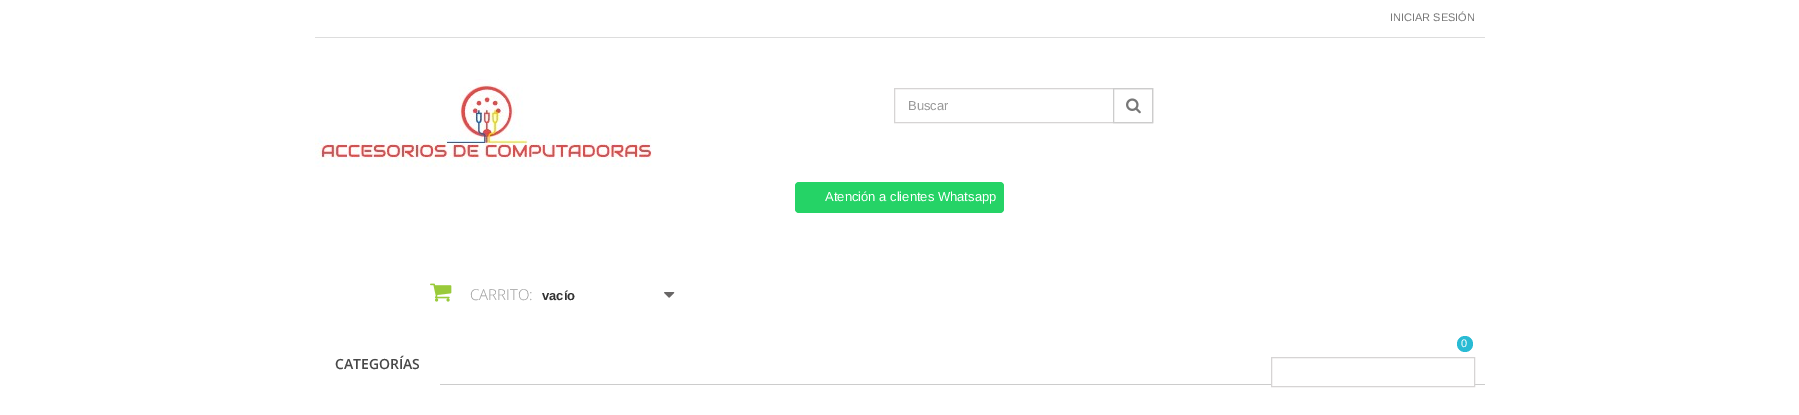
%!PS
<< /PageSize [1799 415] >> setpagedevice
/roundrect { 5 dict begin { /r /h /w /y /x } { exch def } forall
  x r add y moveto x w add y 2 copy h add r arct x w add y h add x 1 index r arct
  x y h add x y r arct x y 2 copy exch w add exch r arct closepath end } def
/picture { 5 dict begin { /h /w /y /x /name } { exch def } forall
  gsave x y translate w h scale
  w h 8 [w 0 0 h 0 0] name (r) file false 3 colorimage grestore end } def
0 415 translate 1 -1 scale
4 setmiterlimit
1 setgray
0 0 1799 415 rectfill
0.867 setgray
315 37 1170 1 rectfill
/LiberationSans-Regular [11 0 0 -11 0 0] selectfont
0.467 setgray
1390 21 moveto (INICIAR SESIÓN) show
(img1.rgb) 315 79 337 88 picture
0.839 0.831 0.831 setrgbcolor
894.5 88.5 258 34 rectstroke
/LiberationSans-Regular [13 0 0 -13 0 0] selectfont
0.6 setgray
908 110 moveto (Buscar) show
0.8 setgray
1113.5 88.5 39 34 rectstroke
(img2.rgb) 1126 98 15 16 picture
0.145 0.827 0.4 setrgbcolor
795 182 209 31 4 roundrect fill
1 setgray
825 201 moveto (Atención a clientes Whatsapp) show
(img3.rgb) 430 283 22 19 picture
/OpenSans-Light [15 0 0 -15 0 0] selectfont
0.6 setgray
470 300 moveto (CARRITO:) show
/LiberationSans-Bold [13 0 0 -13 0 0] selectfont
0.2 setgray
542 300 moveto (vacío) show
(img4.rgb) 664 292 11 6 picture
0.161 0.733 0.831 setrgbcolor
newpath 1465 344 8 0 360 arc closepath fill
/LiberationSans-Regular [11 0 0 -11 0 0] selectfont
1 setgray
1461 347 moveto (0) show
0.8 setgray
440 384 1045 1 rectfill
/OpenSans-SemiBold [14 0 0 -14 0 0] selectfont
0.282 setgray
335 369 moveto (CATEGORÍAS) show
1 setgray
1272 384 202 1 rectfill
0.839 0.831 0.831 setrgbcolor
1271.5 357.5 203 29 rectstroke
showpage
